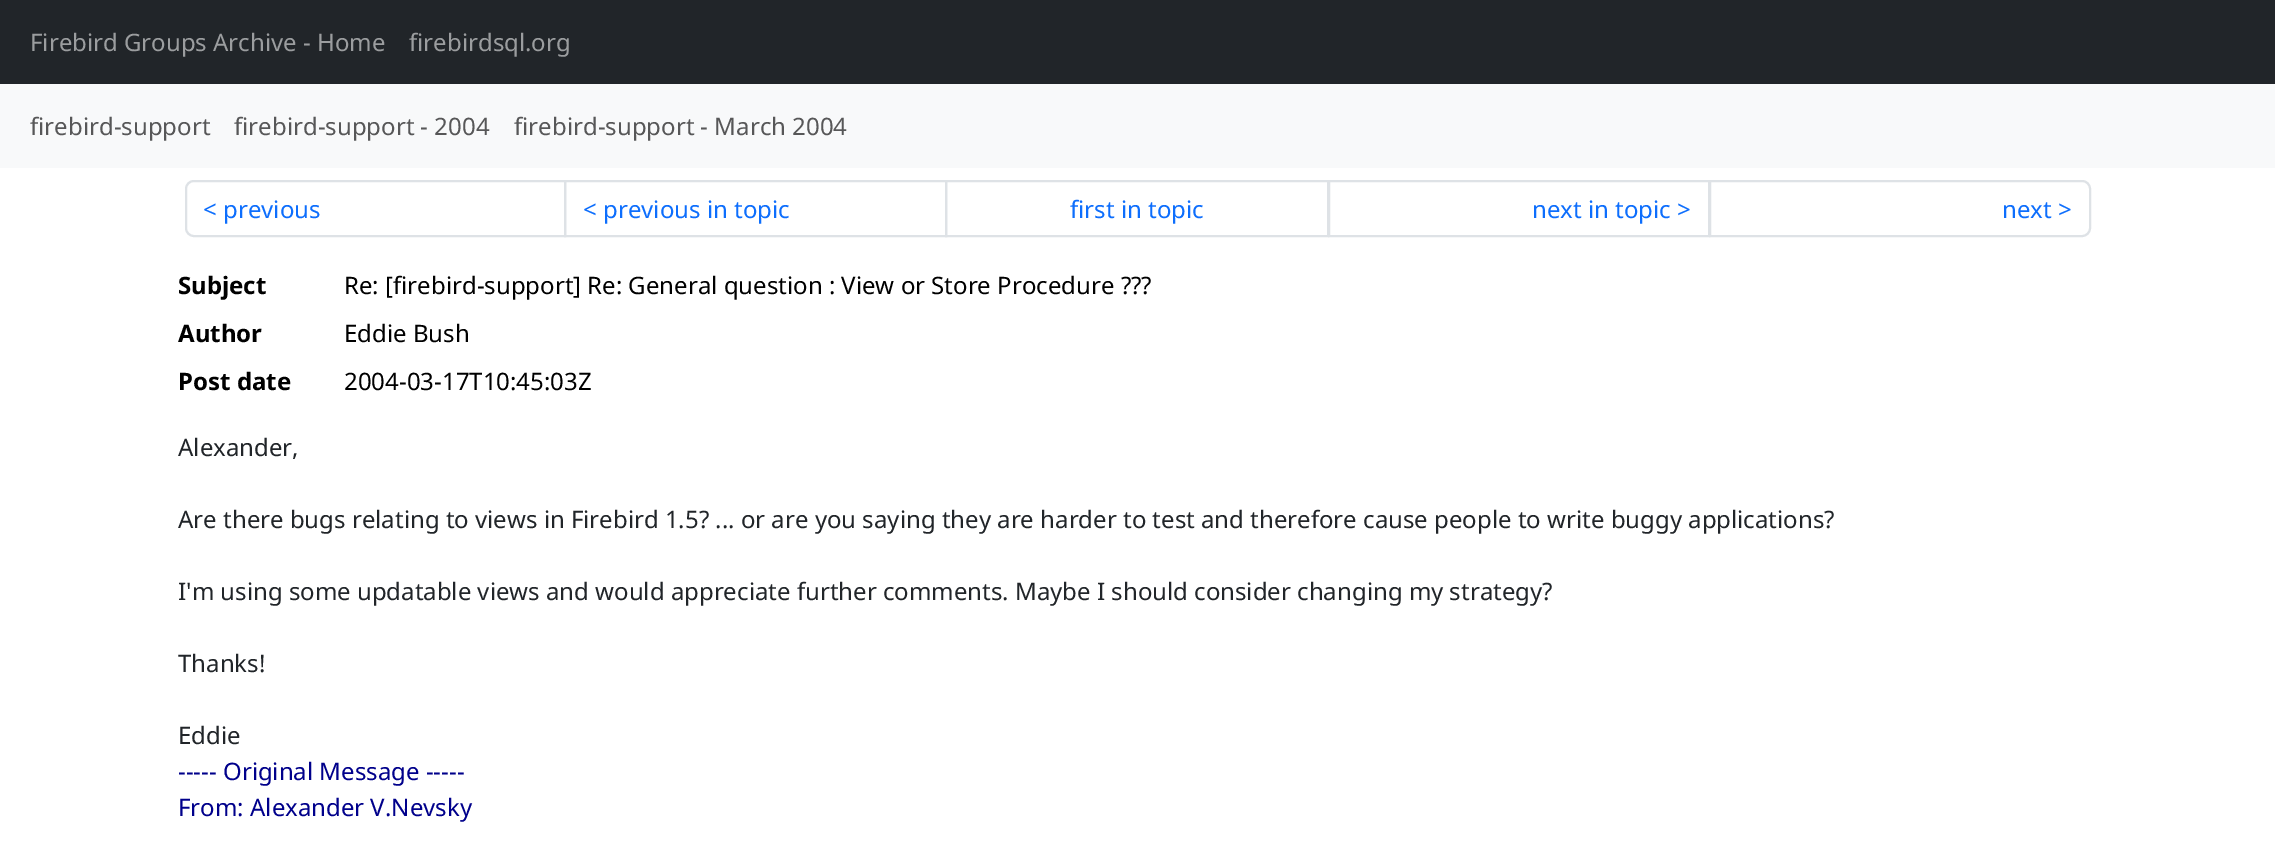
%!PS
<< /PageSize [2275 846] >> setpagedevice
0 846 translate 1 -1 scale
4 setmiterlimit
1 setgray
0 0 2275 846 rectfill
0.129 0.145 0.161 setrgbcolor
0 0 2275 84 rectfill
/NotoSans-Regular [24 0 0 -24 0 0] selectfont
0.608 0.616 0.624 setrgbcolor
30 51 moveto (Firebird Groups Archive - Home) show
409 51 moveto (firebirdsql.org) show
0.973 0.976 0.98 setrgbcolor
0 84 2275 84 rectfill
0.341 0.341 0.345 setrgbcolor
30 135 moveto (firebird-support) show
234 135 moveto (firebird-support - 2004) show
514 135 moveto (firebird-support - March 2004) show
0.871 0.886 0.902 setrgbcolor
2 setlinewidth
newpath 194 181 moveto 565 181 lineto 565 236 lineto 194 236 lineto 189.5 236 186 232.5 186 228 curveto 186 189 lineto 186 184.5 189.5 181 194 181 curveto closepath stroke
0.051 0.431 0.992 setrgbcolor
203 218 moveto (< previous) show
0.871 0.886 0.902 setrgbcolor
565 181 381 55 rectstroke
0.051 0.431 0.992 setrgbcolor
583 218 moveto (< previous in topic) show
0.871 0.886 0.902 setrgbcolor
946 181 382 55 rectstroke
0.051 0.431 0.992 setrgbcolor
1070 218 moveto (first in topic) show
0.871 0.886 0.902 setrgbcolor
1329 181 380 55 rectstroke
0.051 0.431 0.992 setrgbcolor
1532 218 moveto (next in topic >) show
1 setgray
newpath 1710 181 moveto 2082 181 lineto 2086.5 181 2090 184.5 2090 189 curveto 2090 228 lineto 2090 232.5 2086.5 236 2082 236 curveto 1710 236 lineto closepath gsave fill grestore
0.871 0.886 0.902 setrgbcolor
stroke
0.051 0.431 0.992 setrgbcolor
2002 218 moveto (next >) show
/NotoSans-Bold [24 0 0 -24 0 0] selectfont
0 setgray
178 294 moveto (Subject) show
/NotoSans-Regular [24 0 0 -24 0 0] selectfont
344 294 moveto (Re: [firebird-support] Re: General question : View or Store Procedure ???) show
/NotoSans-Bold [24 0 0 -24 0 0] selectfont
178 342 moveto (Author) show
/NotoSans-Regular [24 0 0 -24 0 0] selectfont
344 342 moveto (Eddie Bush) show
/NotoSans-Bold [24 0 0 -24 0 0] selectfont
178 390 moveto (Post date) show
/NotoSans-Regular [24 0 0 -24 0 0] selectfont
344 390 moveto (2004-03-17T10:45:03Z) show
0.129 0.145 0.161 setrgbcolor
178 456 moveto (Alexander,) show
178 528 moveto (Are there bugs relating to views in Firebird 1.5? ... or are you saying they are harder to test and therefore cause people to write buggy applications?) show
178 600 moveto (I'm using some updatable views and would appreciate further comments. Maybe I should consider changing my strategy?) show
178 672 moveto (Thanks!) show
178 744 moveto (Eddie) show
0 0 0.545 setrgbcolor
178 780 moveto (----- Original Message -----) show
178 816 moveto (From: Alexander V.Nevsky) show
showpage
